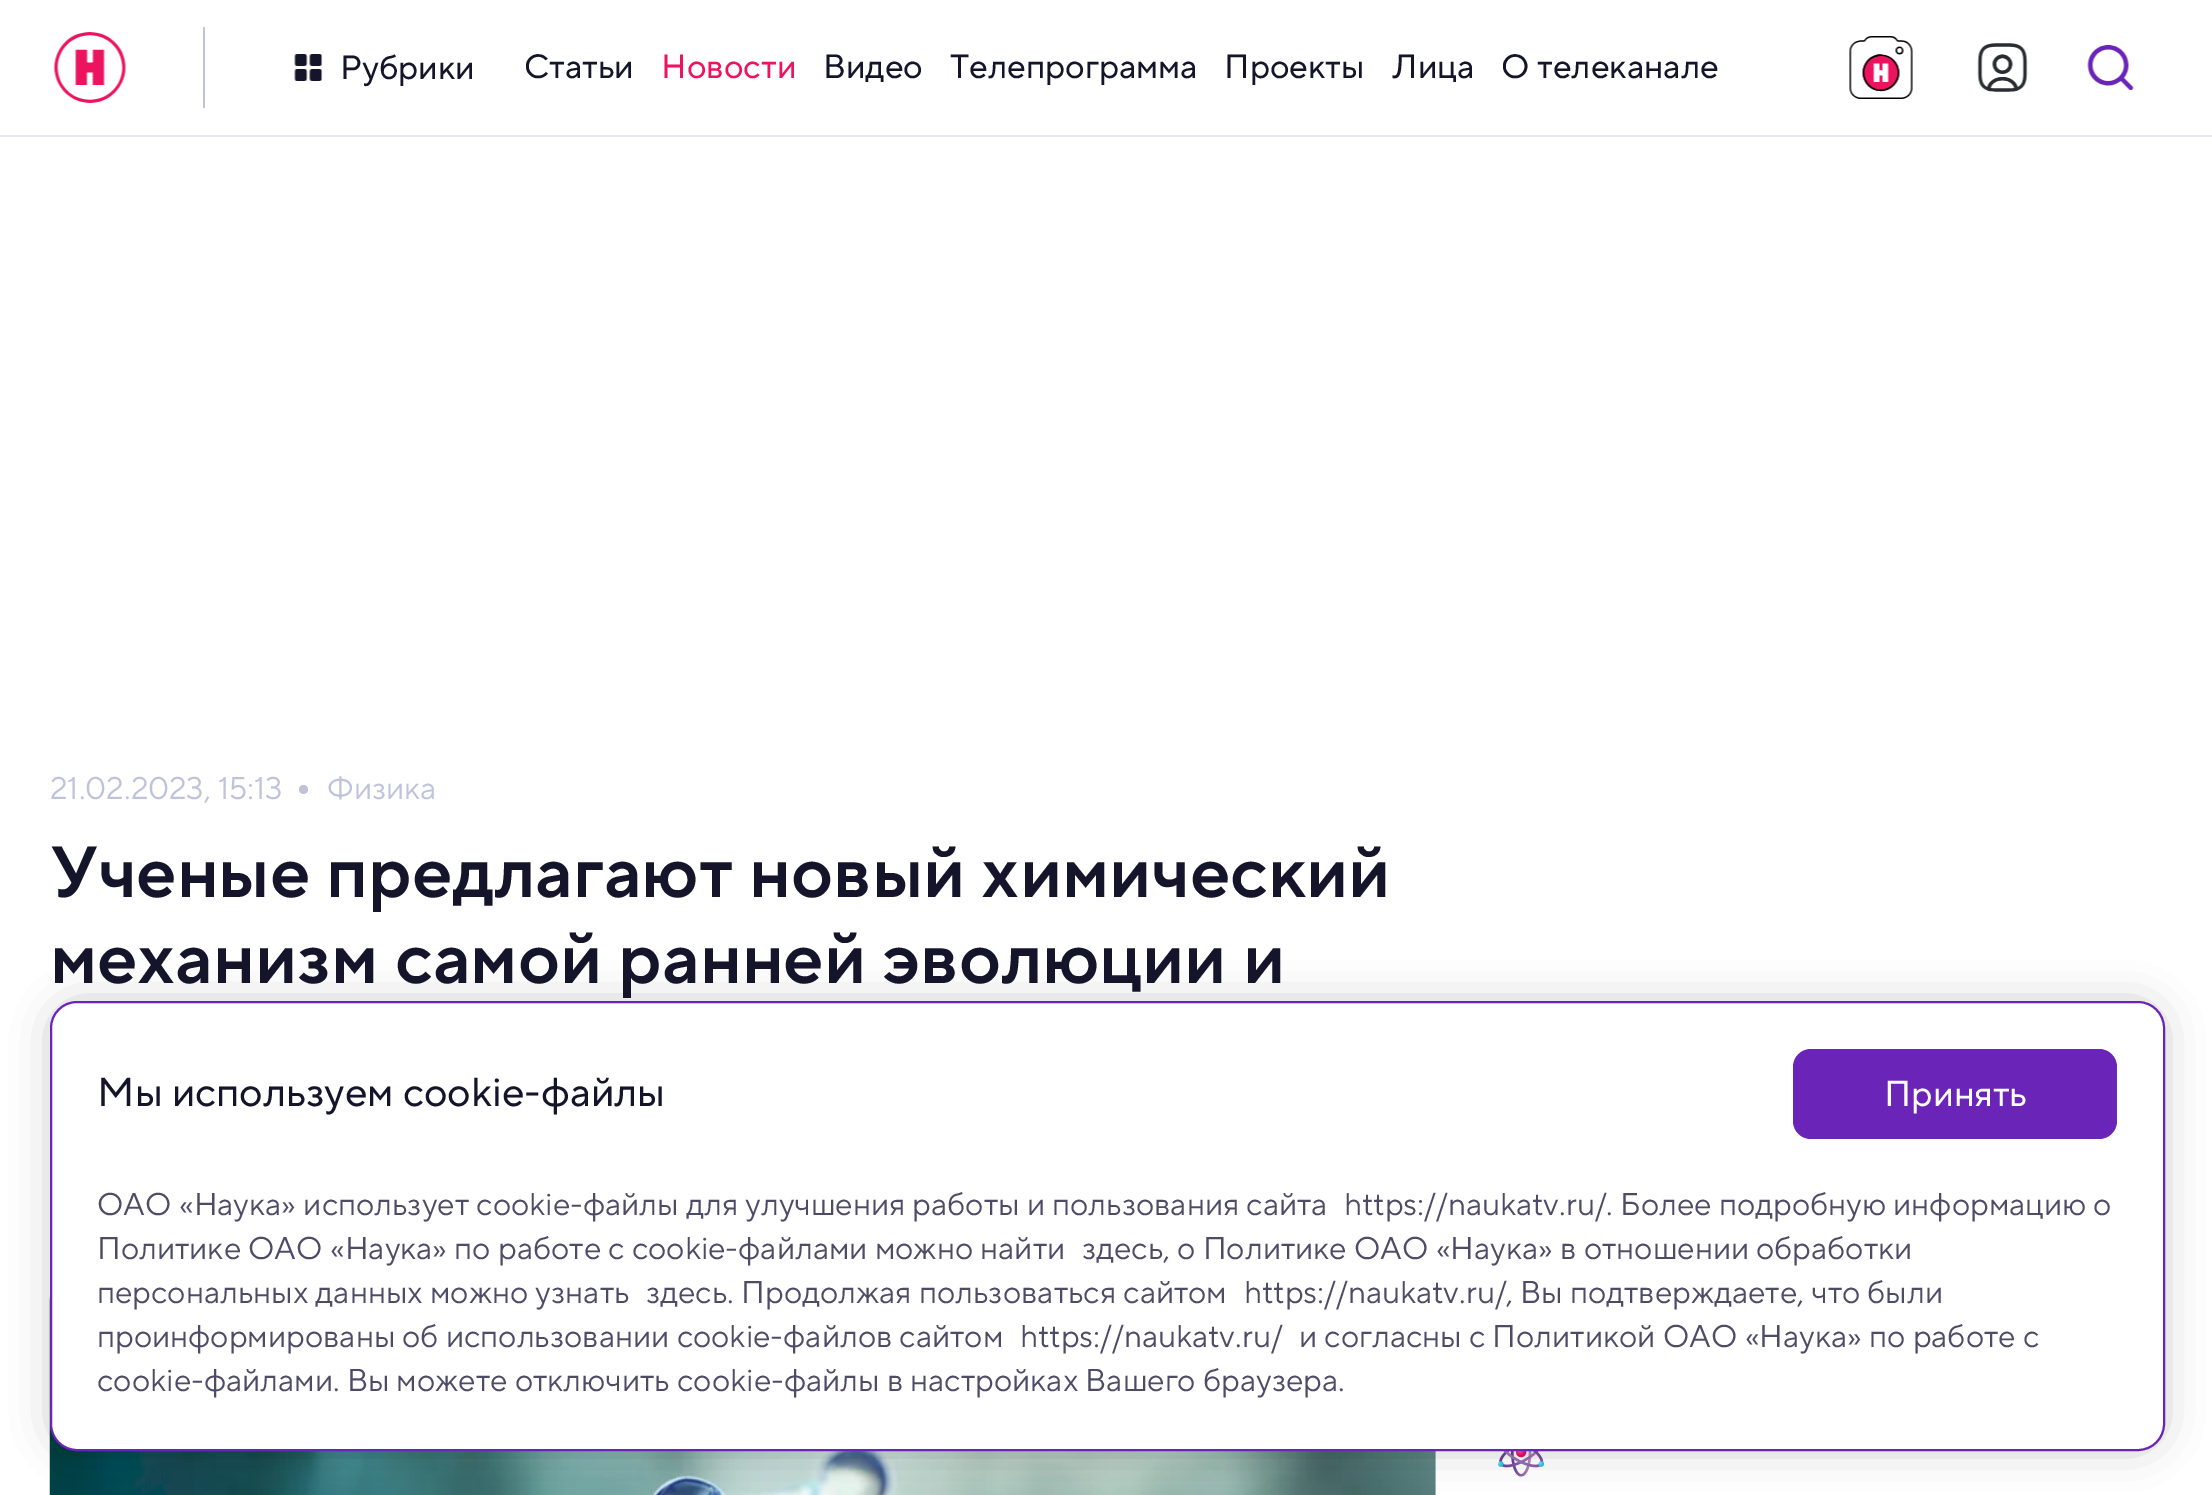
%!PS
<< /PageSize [2212 1495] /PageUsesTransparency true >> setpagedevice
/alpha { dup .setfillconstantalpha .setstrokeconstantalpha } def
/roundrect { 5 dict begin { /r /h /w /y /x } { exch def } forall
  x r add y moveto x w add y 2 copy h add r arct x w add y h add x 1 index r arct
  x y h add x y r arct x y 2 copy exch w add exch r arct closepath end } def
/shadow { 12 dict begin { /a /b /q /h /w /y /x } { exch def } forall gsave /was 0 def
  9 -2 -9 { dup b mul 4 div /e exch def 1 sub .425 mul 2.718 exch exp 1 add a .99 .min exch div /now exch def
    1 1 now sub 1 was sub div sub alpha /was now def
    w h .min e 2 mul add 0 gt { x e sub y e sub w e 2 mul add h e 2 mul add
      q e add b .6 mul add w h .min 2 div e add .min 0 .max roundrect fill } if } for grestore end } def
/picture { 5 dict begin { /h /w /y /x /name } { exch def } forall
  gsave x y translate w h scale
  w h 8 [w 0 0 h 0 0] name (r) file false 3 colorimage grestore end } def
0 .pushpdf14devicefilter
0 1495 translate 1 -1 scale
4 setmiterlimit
1 setgray
0 0 2212 1495 rectfill
0.902 0.914 0.937 setrgbcolor
0 135 2212 2 rectfill
0.745 0.761 0.855 setrgbcolor
203 27 2 81 rectfill
(img1.rgb) 54 32 72 71 picture
(img2.rgb) 294 54 29 27 picture
/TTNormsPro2-Regular [33.75 0 0 -33.75 0 0] selectfont
0.078 0.078 0.165 setrgbcolor
340 79 moveto (Рубрики) show
524 78 moveto (Статьи) show
0.929 0.078 0.373 setrgbcolor
661 78 moveto (Новости) show
0.078 0.078 0.165 setrgbcolor
823 78 moveto (Видео) show
950 78 moveto (Телепрограмма) show
1224 78 moveto (Проекты) show
1392 78 moveto (Лица) show
1501 78 moveto (О телеканале) show
(img3.rgb) 1849 36 64 63 picture
(img4.rgb) 1977 43 51 49 picture
(img5.rgb) 2087 45 47 45 picture
/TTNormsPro-Regular [31.5 0 0 -31.5 0 0] selectfont
0.745 0.761 0.855 setrgbcolor
50 799 moveto (21.02.2023, 15:13) show
newpath 303.5 789.5 4.5 0 360 arc closepath fill
327 799 moveto (Физика) show
/TTNormsPro-SemiBold [72 0 0 -72 0 0] selectfont
0.078 0.078 0.165 setrgbcolor
50 897 moveto (Ученые предлагают новый химический) show
50 983 moveto (механизм самой ранней эволюции и) show
0.745 0.761 0.855 setrgbcolor
1435 1451 1 44 rectfill
(img6.rgb) 49 1296 1387 199 picture
(img7.rgb) 1498 1451 46 26 picture
0 setgray
59 1010 2097 432 18 22.5 0.3 shadow
1 setgray
51 1002 2113 448 26 roundrect gsave fill grestore
0.42 0.141 0.722 setrgbcolor
2 setlinewidth
stroke
/TTNormsPro2-Regular [40.5 0 0 -40.5 0 0] selectfont
0.078 0.078 0.165 setrgbcolor
97 1106 moveto (Мы используем сookie-файлы) show
0.42 0.141 0.722 setrgbcolor
1793 1049 324 90 18 roundrect fill
/TTNormsPro2-Regular [36 0 0 -36 0 0] selectfont
1 setgray
1884 1106 moveto (Принять) show
/TTNormsPro-Regular [31.5 0 0 -31.5 0 0] selectfont
0.306 0.294 0.4 setrgbcolor
97 1215 moveto (ОАО «Наука» использует cookie-файлы для улучшения работы и пользования сайта) show
1344 1215 moveto (https://naukatv.ru/. Более подробную информацию о) show
97 1259 moveto (Политике ОАО «Наука» по работе с cookie-файлами можно найти) show
1082 1259 moveto (здесь, о Политике ОАО «Наука» в отношении обработки) show
97 1303 moveto (персональных данных можно узнать) show
646 1303 moveto (здесь. Продолжая пользоваться сайтом) show
1244 1303 moveto (https://naukatv.ru/, Вы подтверждаете, что были) show
97 1347 moveto (проинформированы об использовании cookie-файлов сайтом) show
1020 1347 moveto (https://naukatv.ru/) show
1299 1347 moveto (и согласны с Политикой ОАО «Наука» по работе с) show
97 1391 moveto (cookie-файлами. Вы можете отключить cookie-файлы в настройках Вашего браузера.) show
.poppdf14devicefilter showpage
